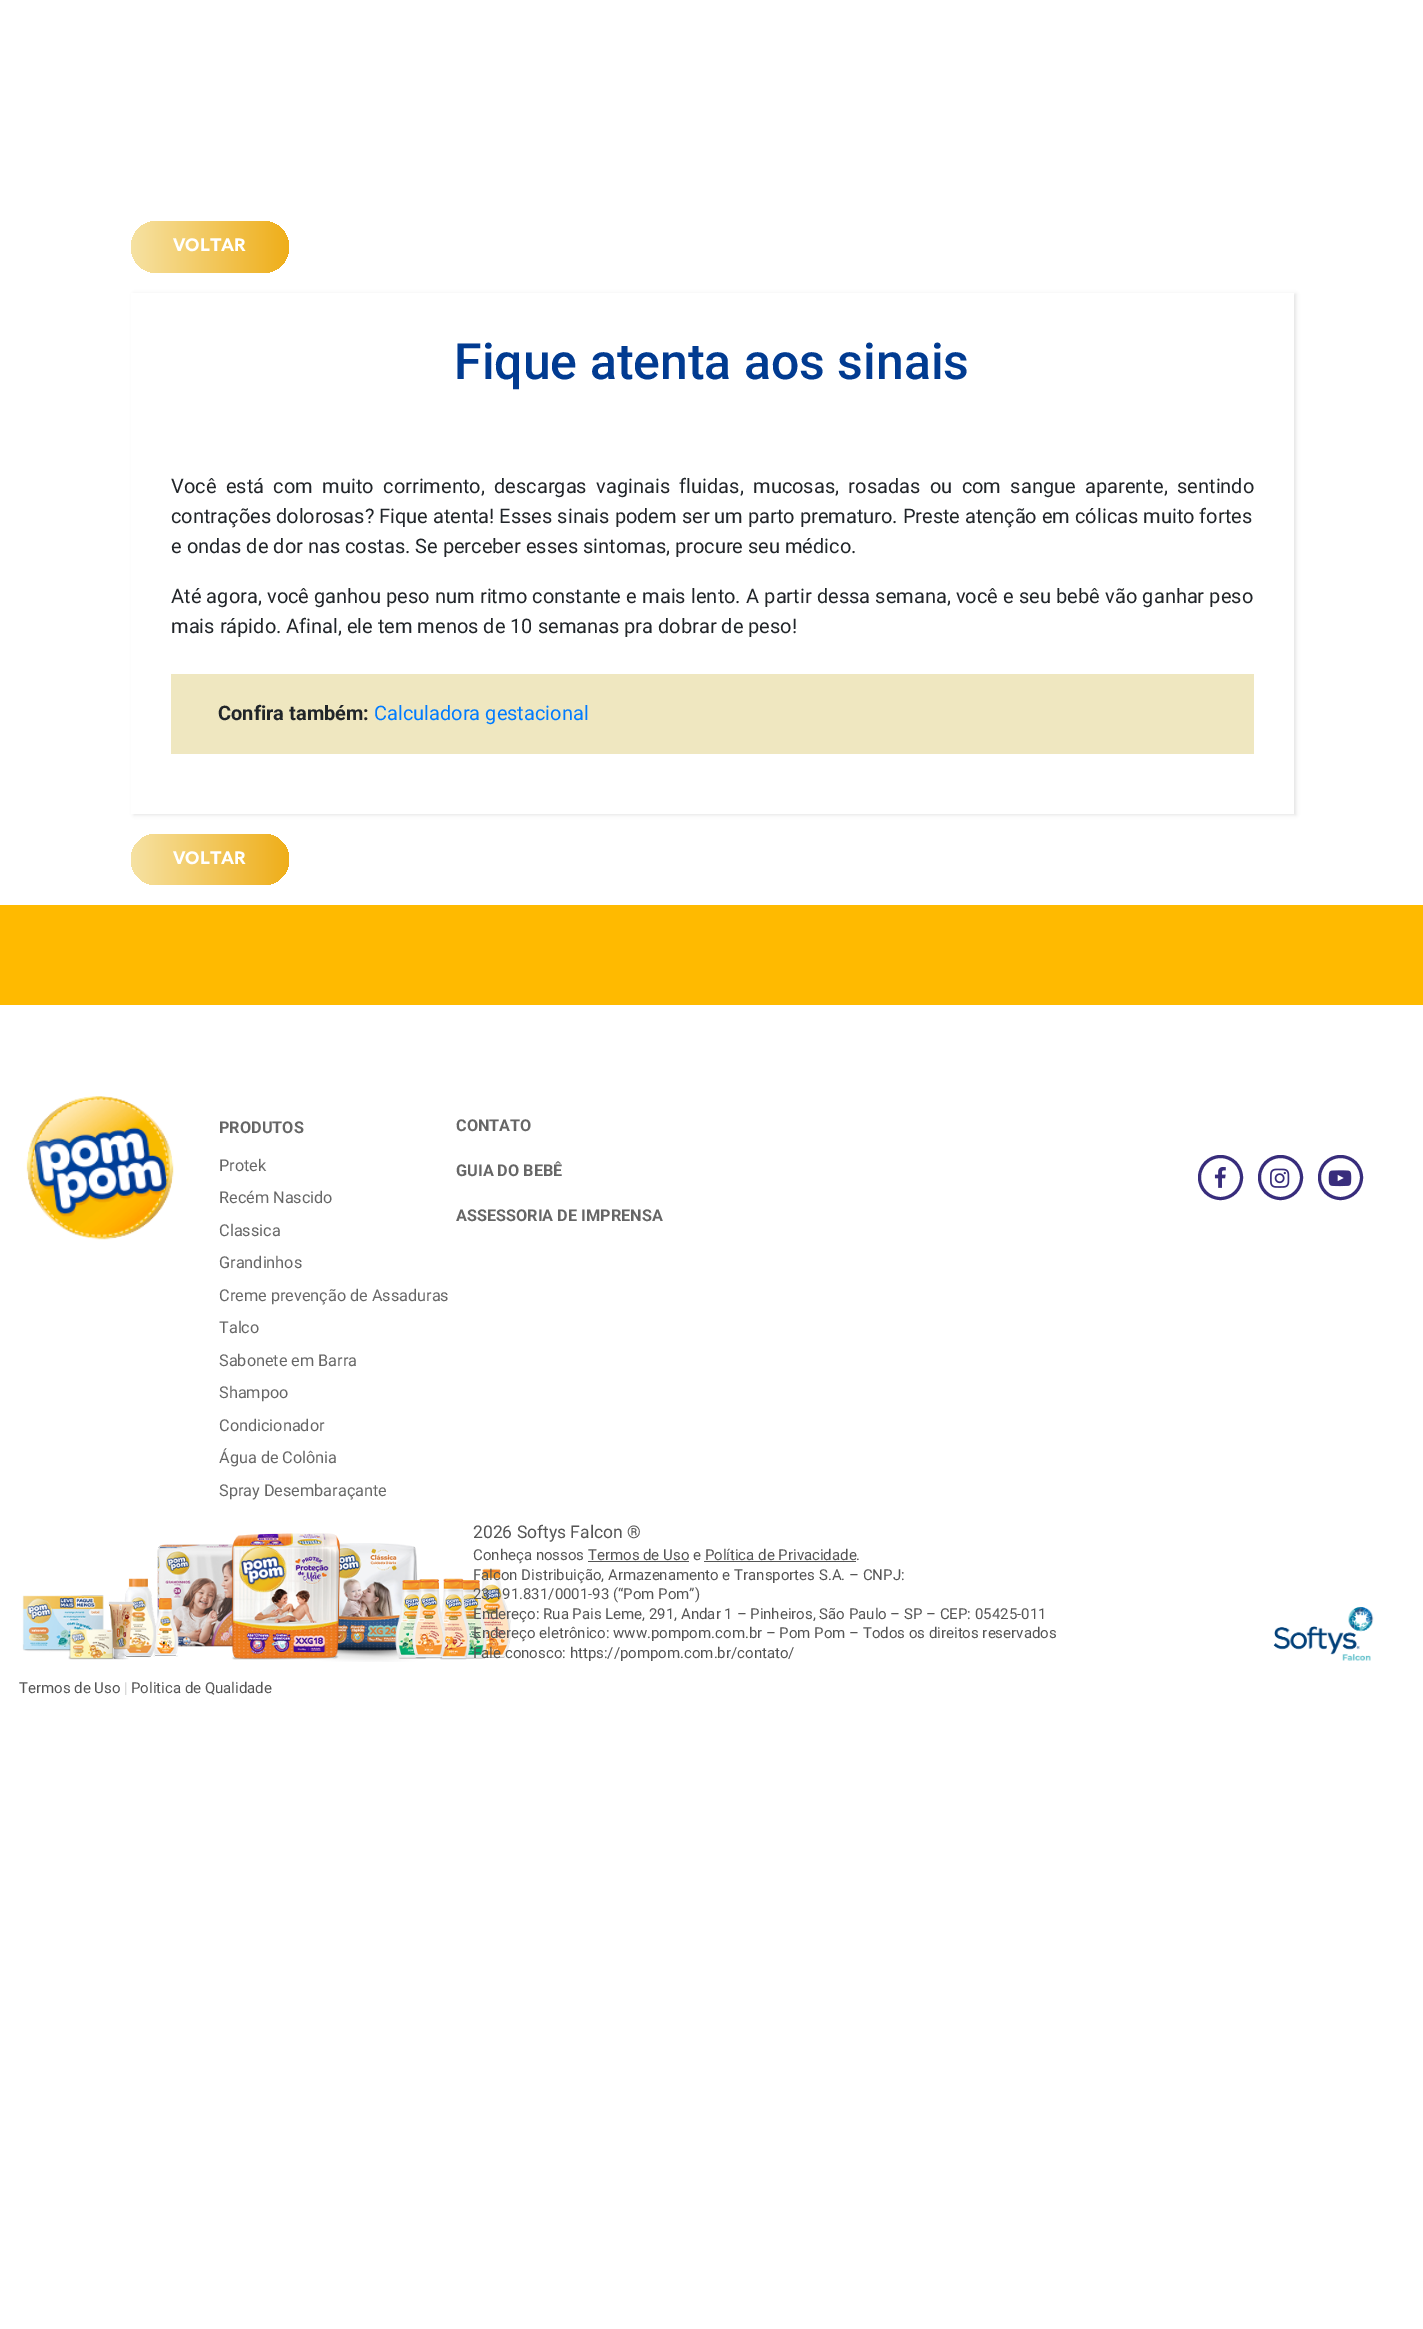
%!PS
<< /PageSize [1423 2329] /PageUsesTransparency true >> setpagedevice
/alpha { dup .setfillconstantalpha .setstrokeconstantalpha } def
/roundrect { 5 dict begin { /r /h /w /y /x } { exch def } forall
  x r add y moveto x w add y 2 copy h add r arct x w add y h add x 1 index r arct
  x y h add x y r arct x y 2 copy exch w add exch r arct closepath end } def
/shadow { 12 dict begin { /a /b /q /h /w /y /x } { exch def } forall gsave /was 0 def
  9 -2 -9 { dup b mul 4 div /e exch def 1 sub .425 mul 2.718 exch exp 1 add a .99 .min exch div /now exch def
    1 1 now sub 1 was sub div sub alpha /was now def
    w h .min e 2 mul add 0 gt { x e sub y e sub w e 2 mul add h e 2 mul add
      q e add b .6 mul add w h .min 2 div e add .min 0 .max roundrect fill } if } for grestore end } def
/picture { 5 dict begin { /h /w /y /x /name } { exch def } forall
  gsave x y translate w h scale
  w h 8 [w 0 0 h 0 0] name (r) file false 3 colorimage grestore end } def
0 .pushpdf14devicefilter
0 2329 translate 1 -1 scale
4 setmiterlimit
1 setgray
0 0 1423 2329 rectfill
gsave 131 221 158 52 26 roundrect clip newpath
<< /ShadingType 2 /ColorSpace /DeviceRGB /Coords [131 247 289 247] /Extend [true true] /Function << /FunctionType 2 /Domain [0 1] /C0 [0.965 0.886 0.639] /C1 [0.937 0.682 0.098] /N 1 >> >> shfill grestore
/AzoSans-Bold [17.5 0 0 -17.5 0 0] selectfont
173 251 moveto (VOLTAR) show
0 setgray
134 294 1162 521 0 2 0.11 shadow
1 setgray
131 293 1163 521 rectfill
/Roboto-Medium [50 0 0 -50 0 0] selectfont
0.004 0.231 0.569 setrgbcolor
454 379 moveto (Fique atenta aos sinais) show
/Roboto-Regular [20 0 0 -20 0 0] selectfont
0.129 0.145 0.161 setrgbcolor
171 493 moveto 4.5 0 32 (Você está com muito corrimento, descargas vaginais fluidas, mucosas, rosadas ou com sangue aparente, sentindo) widthshow
171 523 moveto (contrações dolorosas? Fique atenta! Esses sinais podem ser um parto prematuro. Preste atenção em cólicas muito fortes) show
171 553 moveto (e ondas de dor nas costas. Se perceber esses sintomas, procure seu médico.) show
171 603 moveto 0.3 0 32 (Até agora, você ganhou peso num ritmo constante e mais lento. A partir dessa semana, você e seu bebê vão ganhar peso) widthshow
171 633 moveto (mais rápido. Afinal, ele tem menos de 10 semanas pra dobrar de peso!) show
0.937 0.906 0.753 setrgbcolor
171 674 1083 80 rectfill
/Roboto-Bold [20 0 0 -20 0 0] selectfont
0.129 0.145 0.161 setrgbcolor
218 720 moveto (Confira também:) show
/Roboto-Regular [20 0 0 -20 0 0] selectfont
0 0.482 1 setrgbcolor
374 720 moveto (Calculadora gestacional) show
gsave 131 834 158 51 25.5 roundrect clip newpath
<< /ShadingType 2 /ColorSpace /DeviceRGB /Coords [131 859 289 859] /Extend [true true] /Function << /FunctionType 2 /Domain [0 1] /C0 [0.965 0.886 0.639] /C1 [0.937 0.682 0.098] /N 1 >> >> shfill grestore
/AzoSans-Bold [17.5 0 0 -17.5 0 0] selectfont
1 setgray
173 864 moveto (VOLTAR) show
1 0.729 0 setrgbcolor
0 905 1423 100 rectfill
(img1.rgb) 26 1096 148 144 picture
/Roboto-Bold [16.25 0 0 -16.25 0 0] selectfont
0.4 setgray
219 1133 moveto (PRODUTOS) show
/Roboto-Regular [16.25 0 0 -16.25 0 0] selectfont
219 1171 moveto (Protek) show
219 1203 moveto (Recém Nascido) show
219 1236 moveto (Classica) show
219 1268 moveto (Grandinhos) show
219 1301 moveto (Creme prevenção de Assaduras) show
219 1333 moveto (Talco) show
219 1366 moveto (Sabonete em Barra) show
219 1398 moveto (Shampoo) show
219 1431 moveto (Condicionador) show
219 1463 moveto (Água de Colônia) show
219 1496 moveto (Spray Desembaraçante) show
/Roboto-Bold [16.25 0 0 -16.25 0 0] selectfont
456 1131 moveto (CONTATO) show
456 1176 moveto (GUIA DO BEBÊ) show
456 1221 moveto (ASSESSORIA DE IMPRENSA) show
0.22 0.176 0.486 setrgbcolor
3 setlinewidth
newpath 1220.5 1177.5 21 0 360 arc closepath stroke
(img2.rgb) 1214 1167 12 21 picture
newpath 1280.5 1177.5 21 0 360 arc closepath stroke
(img3.rgb) 1270 1168 20 20 picture
newpath 1340.5 1177.5 21 0 360 arc closepath stroke
(img4.rgb) 1328 1170 24 17 picture
(img6.rgb) 22 1533 489 129 picture
/Roboto-Regular [17.5 0 0 -17.5 0 0] selectfont
0.333 setgray
473 1538 moveto (2026 Softys Falcon ®) show
/Roboto-Regular [15 0 0 -15 0 0] selectfont
473 1560 moveto (Conheça nossos Termos de Uso e Política de Privacidade.) show
588 1561 101 1 rectfill
704 1561 152 1 rectfill
473 1580 moveto (Falcon Distribuição, Armazenamento e Transportes S.A. – CNPJ:) show
473 1599 moveto (23.191.831/0001-93 \(“Pom Pom”\)) show
473 1619 moveto (Endereço: Rua Pais Leme, 291, Andar 1 – Pinheiros, São Paulo – SP – CEP: 05425-011) show
473 1638 moveto (Endereço eletrônico: www.pompom.com.br – Pom Pom – Todos os direitos reservados) show
473 1658 moveto (Fale conosco: https://pompom.com.br/contato/) show
(img5.rgb) 1273 1606 101 55 picture
19 1693 moveto (Termos de Uso) show
0.8 setgray
124 1693 moveto (|) show
0.333 setgray
131 1693 moveto (Politica de Qualidade) show
.poppdf14devicefilter showpage
